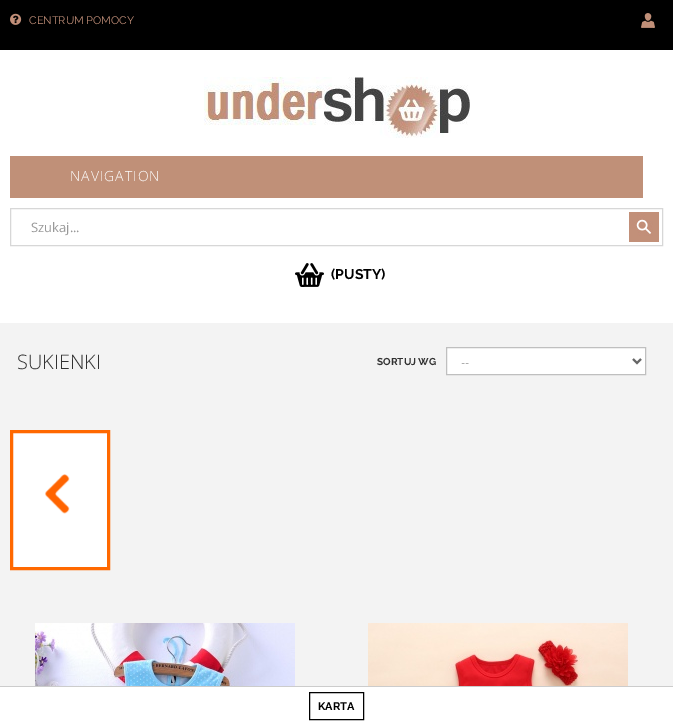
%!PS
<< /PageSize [673 725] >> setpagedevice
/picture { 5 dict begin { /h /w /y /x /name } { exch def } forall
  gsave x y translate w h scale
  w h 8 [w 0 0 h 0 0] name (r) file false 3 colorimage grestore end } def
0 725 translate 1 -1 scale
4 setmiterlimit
1 setgray
0 0 673 725 rectfill
0 setgray
0 0 673 50 rectfill
(img1.rgb) 10 13 12 12 picture
/Raleway-Regular [11 0 0 -11 0 0] selectfont
0.761 0.561 0.475 setrgbcolor
29 24 moveto (CENTRUM POMOCY) show
(img2.rgb) 641 13 14 15 picture
(img3.rgb) 204 77 266 61 picture
0.753 0.565 0.471 setrgbcolor
10 156 633 42 rectfill
/OpenSans-Light [14 0 0 -14 0 0] selectfont
1 setgray
70 181 moveto 1 0 (NAVIGATION) ashow
0.843 setgray
10.5 208.5 652 37 rectstroke
/OpenSans-Regular [13 0 0 -13 0 0] selectfont
0.6 setgray
31 232 moveto (Szukaj...) show
(img4.rgb) 629 212 30 30 picture
(img5.rgb) 295 263 29 24 picture
/Raleway-Bold [14 0 0 -14 0 0] selectfont
0 setgray
331 279 moveto (\(PUSTY\)) show
0.953 setgray
0 323 673 363 rectfill
/OpenSans-Light [20 0 0 -20 0 0] selectfont
0.196 setgray
17 369 moveto (SUKIENKI) show
/Raleway-Bold [10 0 0 -10 0 0] selectfont
377 365 moveto (SORTUJ WG) show
1 setgray
newpath 446.5 347.5 moveto 645.5 347.5 lineto 645.5 374.5 lineto 446.5 374.5 lineto closepath gsave fill grestore
0.749 setgray
stroke
0.4 setgray
2 setlinewidth
newpath 633 359 moveto 637 363 lineto 641 359 lineto stroke
/Raleway-Regular [10 0 0 -10 0 0] selectfont
461 366 moveto (--) show
1 setgray
newpath 11.5 431.5 moveto 108.5 431.5 lineto 108.5 568.5 lineto 11.5 568.5 lineto closepath gsave fill grestore
1 0.408 0 setrgbcolor
3 setlinewidth
stroke
(img6.rgb) 45 474 25 40 picture
(img7.rgb) 35 623 260 63 picture
(img8.rgb) 368 623 260 63 picture
0.8 setgray
0 686 673 1 rectfill
0 setgray
1 setlinewidth
309.5 692.5 54 27 rectstroke
/Raleway-Bold [11 0 0 -11 0 0] selectfont
318 710 moveto (KARTA) show
showpage
